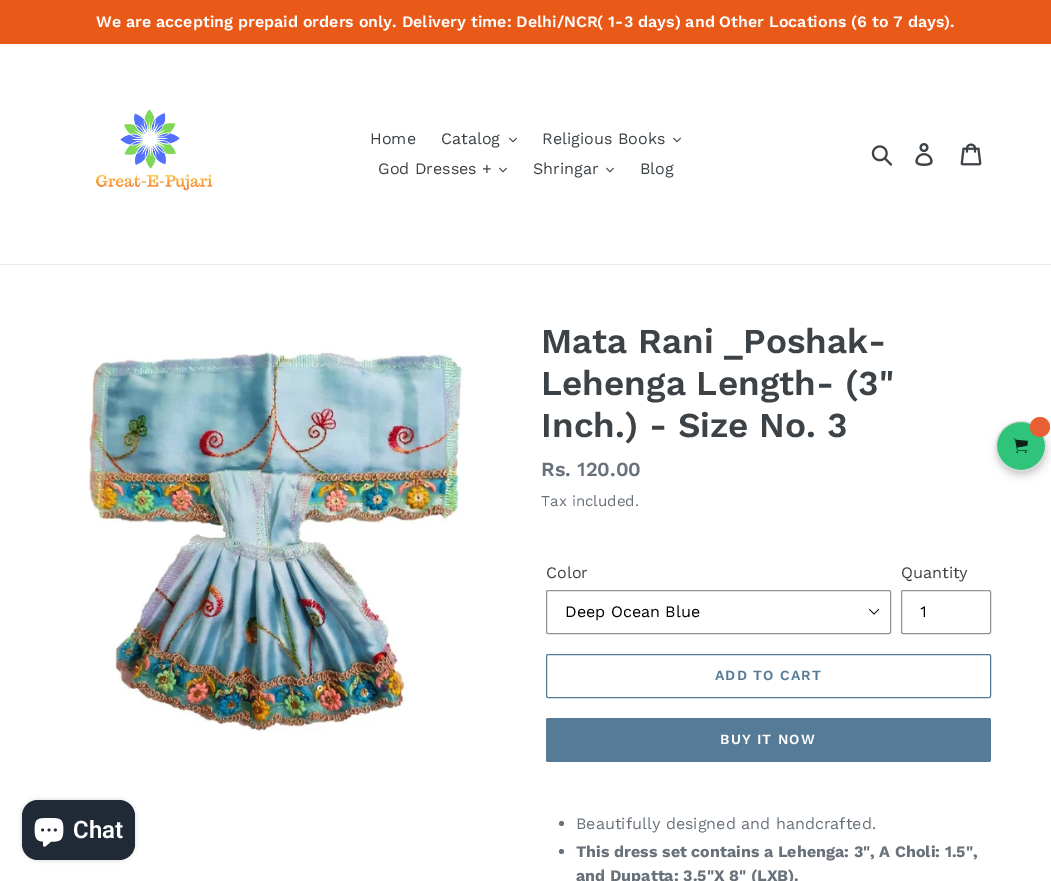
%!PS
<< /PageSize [1051 881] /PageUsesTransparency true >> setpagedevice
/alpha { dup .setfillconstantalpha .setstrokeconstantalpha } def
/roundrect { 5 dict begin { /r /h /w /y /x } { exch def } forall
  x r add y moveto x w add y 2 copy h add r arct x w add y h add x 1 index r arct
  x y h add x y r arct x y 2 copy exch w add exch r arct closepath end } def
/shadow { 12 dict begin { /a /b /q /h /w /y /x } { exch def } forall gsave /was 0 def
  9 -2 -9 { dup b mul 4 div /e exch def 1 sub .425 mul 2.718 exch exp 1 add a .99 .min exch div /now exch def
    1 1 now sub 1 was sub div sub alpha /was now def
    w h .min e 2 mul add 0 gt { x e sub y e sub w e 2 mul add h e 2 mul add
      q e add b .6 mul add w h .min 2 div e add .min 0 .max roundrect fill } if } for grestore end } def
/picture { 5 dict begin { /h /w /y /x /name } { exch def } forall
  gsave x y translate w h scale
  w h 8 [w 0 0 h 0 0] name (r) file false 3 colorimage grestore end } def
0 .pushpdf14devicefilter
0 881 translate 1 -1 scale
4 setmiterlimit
1 setgray
0 0 1051 881 rectfill
0.914 0.353 0.098 setrgbcolor
0 0 1051 44 rectfill
/WorkSans-SemiBold [16 0 0 -16 0 0] selectfont
1 setgray
96 27 moveto (We are accepting prepaid orders only. Delivery time: Delhi/NCR\( 1-3 days\) and Other Locations \(6 to 7 days\).) show
0.91 0.914 0.922 setrgbcolor
0 264 1051 1 rectfill
(img1.rgb) 95 109 118 82 picture
/WorkSans-Regular [16 0 0 -16 0 0] selectfont
0.239 0.259 0.275 setrgbcolor
370 144 moveto (Home) show
441 144 moveto (Catalog) show
(img2.rgb) 509 137 8 6 picture
542 144 moveto (Religious Books) show
(img2.rgb) 673 137 8 6 picture
378 174 moveto (God Dresses +) show
(img2.rgb) 499 167 8 6 picture
533 174 moveto (Shringar) show
(img2.rgb) 606 167 8 6 picture
640 174 moveto (Blog) show
(img3.rgb) 871 145 22 21 picture
(img4.rgb) 915 143 18 23 picture
(img5.rgb) 960 143 22 23 picture
(img6.rgb) 86 350 378 382 picture
/WorkSans-SemiBold [35 0 0 -35 0 0] selectfont
541 353 moveto (Mata Rani _Poshak-) show
541 395 moveto (Lehenga Length- \(3") show
541 437 moveto (Inch.\) - Size No. 3) show
/WorkSans-SemiBold [20 0 0 -20 0 0] selectfont
0.412 0.447 0.482 setrgbcolor
541 476 moveto (Rs. 120.00) show
/WorkSans-Regular [15 0 0 -15 0 0] selectfont
541 506 moveto (Tax included.) show
/WorkSans-Regular [16 0 0 -16 0 0] selectfont
0.239 0.259 0.275 setrgbcolor
546 578 moveto (Color) show
(img7.rgb) 868 608 12 7 picture
0.58 setgray
546.5 590.5 344 43 1.5 roundrect stroke
0 setgray
565 617 moveto (Deep Ocean Blue) show
0.239 0.259 0.275 setrgbcolor
901 578 moveto (Quantity) show
0.58 setgray
901.5 590.5 89 43 1.5 roundrect stroke
0 setgray
920 617 moveto (1) show
0.333 0.482 0.592 setrgbcolor
546.5 654.5 444 43 1.5 roundrect stroke
/WorkSans-SemiBold [14 0 0 -14 0 0] selectfont
715 680 moveto 1.1 0 (ADD TO CART) ashow
546 718 445 44 2 roundrect fill
1 setgray
720 744 moveto 1.1 0 (BUY IT NOW) ashow
0.412 0.447 0.482 setrgbcolor
newpath 561.5 823.5 2.5 0 360 arc closepath fill
/WorkSans-Regular [16 0 0 -16 0 0] selectfont
576 829 moveto (Beautifully designed and handcrafted.) show
newpath 561.5 851.5 2.5 0 360 arc closepath fill
/WorkSans-Bold [16 0 0 -16 0 0] selectfont
576 857 moveto (This dress set contains a Lehenga: 3", A Choli: 1.5",) show
576 881 moveto (and Dupatta: 3.5"X 8" \(LXB\).) show
0 setgray
996 425 50 50 25 2 0.08 shadow
997 425 50 50 25 5 0.12 shadow
0.188 0.765 0.478 setrgbcolor
newpath 1021 446 24.5 0 360 arc closepath gsave fill grestore
0.867 setgray
stroke
0.906 0.373 0.2 setrgbcolor
newpath 1040 427 10 0 360 arc closepath fill
(img8.rgb) 1013 438 15 15 picture
0 setgray
22 800 113 60 16 2.5 0.15 shadow
0.125 0.165 0.212 setrgbcolor
22 800 113 60 16 roundrect fill
(img9.rgb) 34 818 30 29 picture
/Roboto-SemiBold [24 0 0 -24 0 0] selectfont
1 setgray
73 838 moveto (Chat) show
.poppdf14devicefilter showpage
